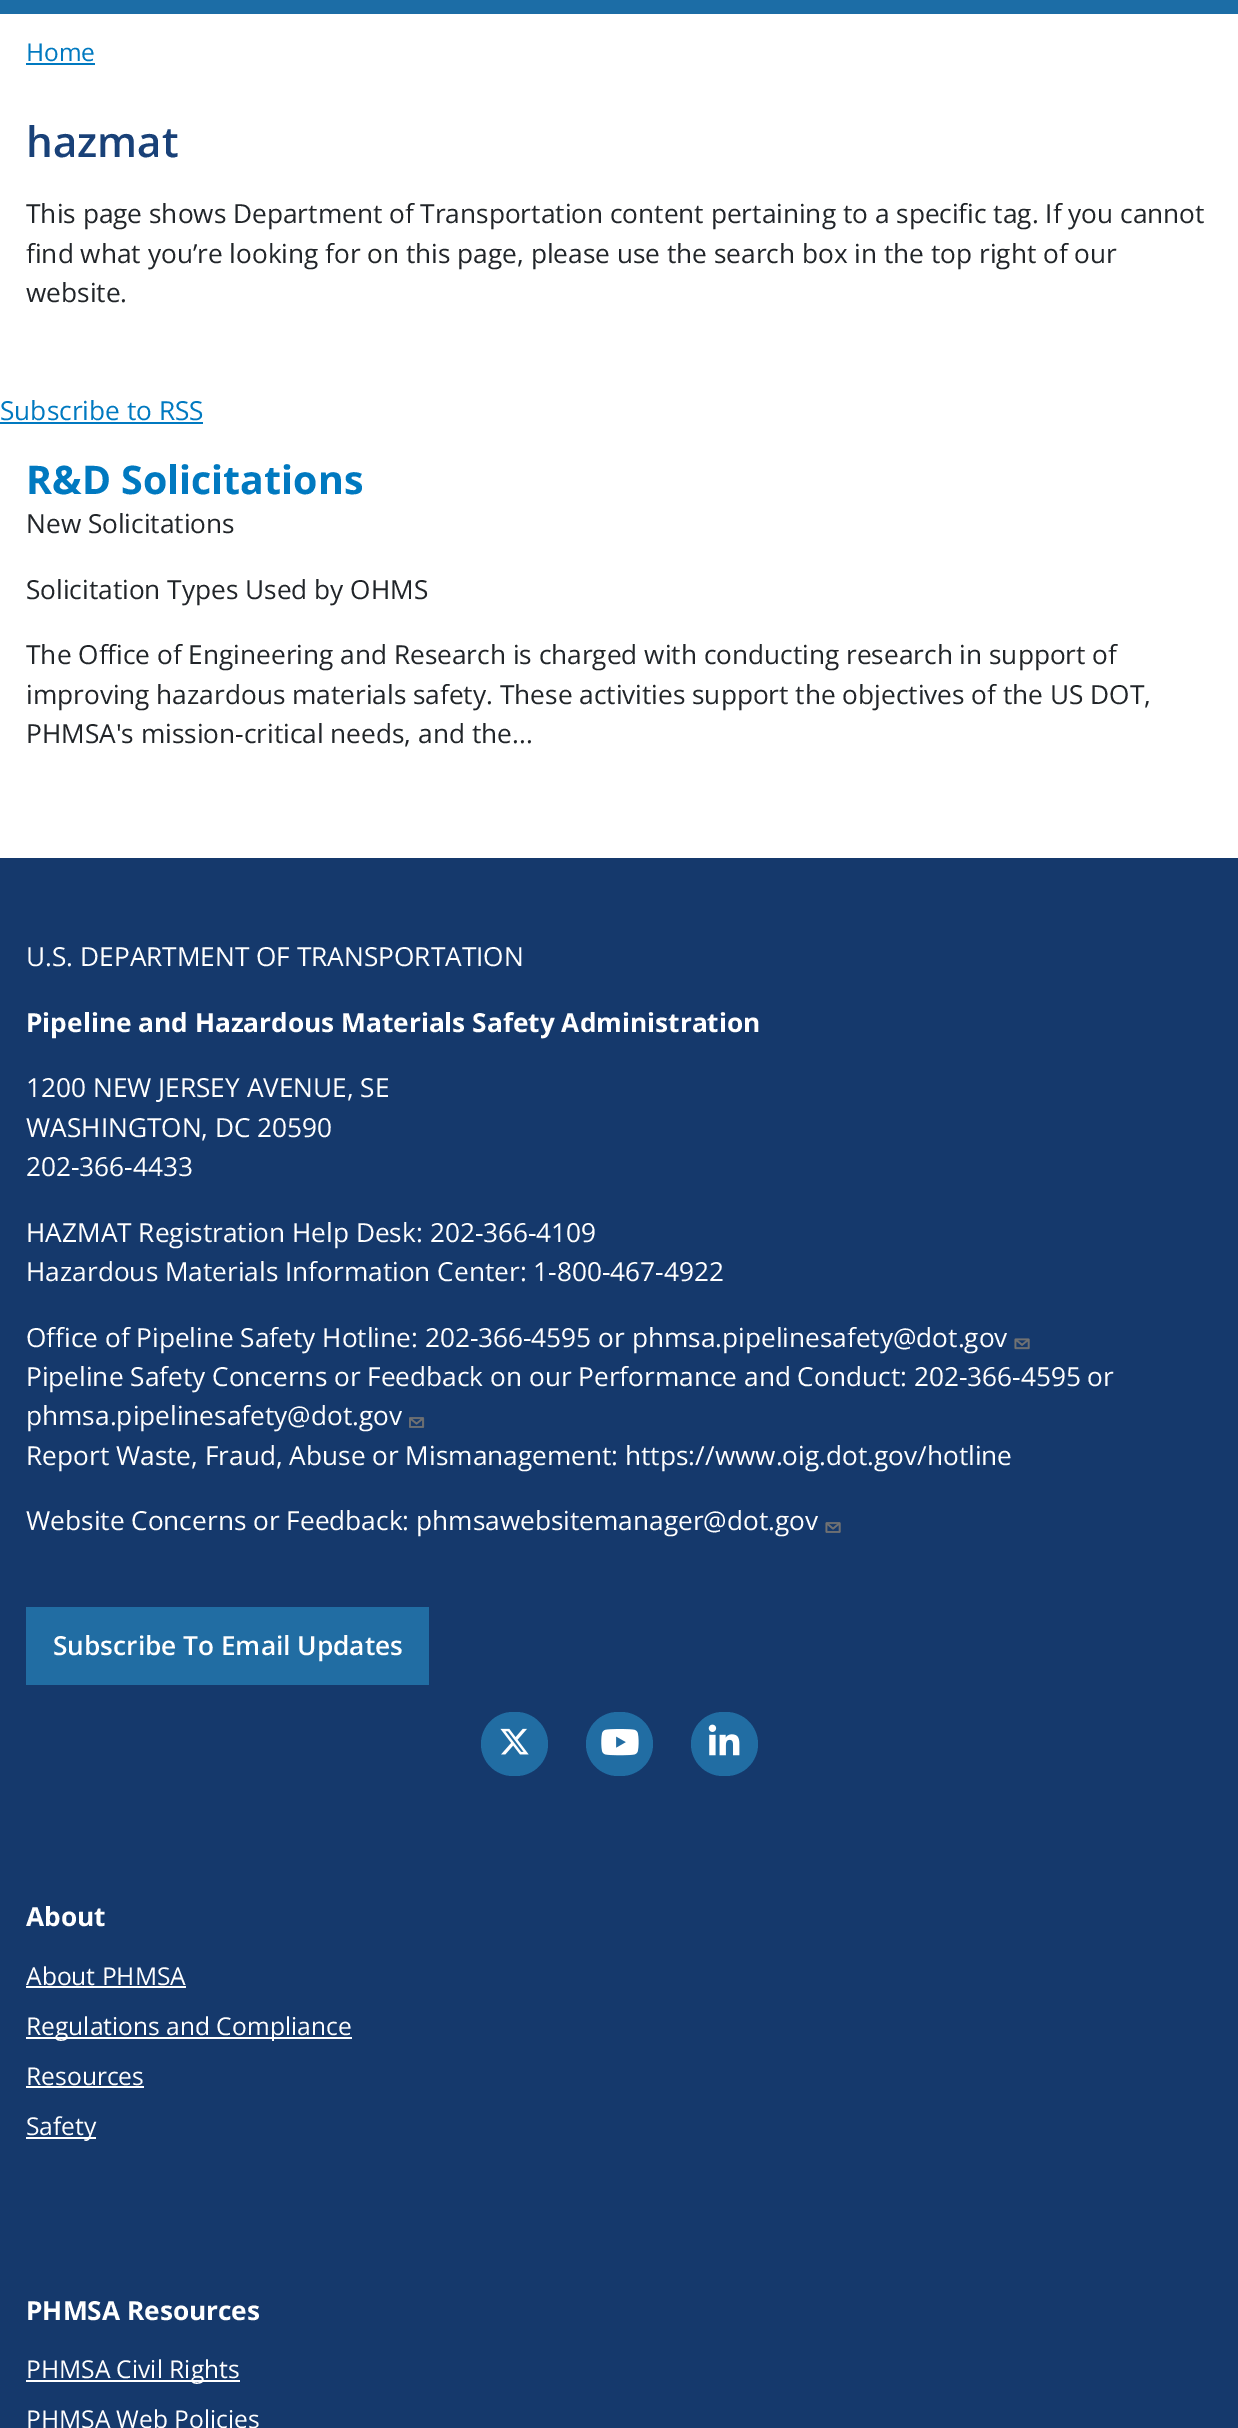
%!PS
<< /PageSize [1238 2428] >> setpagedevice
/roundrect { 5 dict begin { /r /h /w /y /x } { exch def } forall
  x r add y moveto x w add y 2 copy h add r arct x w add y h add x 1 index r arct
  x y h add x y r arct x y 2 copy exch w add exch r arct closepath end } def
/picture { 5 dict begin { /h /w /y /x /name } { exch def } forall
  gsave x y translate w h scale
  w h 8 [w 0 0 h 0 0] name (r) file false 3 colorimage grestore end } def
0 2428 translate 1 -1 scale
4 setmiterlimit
1 setgray
0 0 1238 2428 rectfill
0.11 0.427 0.651 setrgbcolor
0 0 1238 14 rectfill
/OpenSans-Regular [24.5 0 0 -24.5 0 0] selectfont
0 0.475 0.753 setrgbcolor
26 61 moveto (Home) show
26 63 69 2 rectfill
/OpenSans-SemiBold [42 0 0 -42 0 0] selectfont
0.098 0.255 0.471 setrgbcolor
26 157 moveto (hazmat) show
/OpenSans-Regular [26.25 0 0 -26.25 0 0] selectfont
0.129 0.145 0.161 setrgbcolor
26 223 moveto (This page shows Department of Transportation content pertaining to a specific tag. If you cannot) show
26 263 moveto (find what you’re looking for on this page, please use the search box in the top right of our) show
26 302 moveto (website.) show
0 0.475 0.753 setrgbcolor
0 420 moveto (Subscribe to RSS) show
0 422 203 2 rectfill
/OpenSans-Bold [39.4 0 0 -39.4 0 0] selectfont
26 494 moveto (R&D Solicitations) show
/OpenSans-Regular [26.25 0 0 -26.25 0 0] selectfont
0.129 0.145 0.161 setrgbcolor
26 533 moveto (New Solicitations) show
26 599 moveto (Solicitation Types Used by OHMS) show
26 664 moveto (The Office of Engineering and Research is charged with conducting research in support of) show
26 704 moveto (improving hazardous materials safety. These activities support the objectives of the US DOT,) show
26 743 moveto (PHMSA's mission-critical needs, and the...) show
0.082 0.224 0.424 setrgbcolor
0 858 1238 1570 rectfill
1 setgray
26 966 moveto (U.S. DEPARTMENT OF TRANSPORTATION) show
/OpenSans-Bold [26.25 0 0 -26.25 0 0] selectfont
26 1032 moveto (Pipeline and Hazardous Materials Safety Administration) show
/OpenSans-Regular [26.25 0 0 -26.25 0 0] selectfont
26 1097 moveto (1200 NEW JERSEY AVENUE, SE) show
26 1137 moveto (WASHINGTON, DC 20590) show
26 1176 moveto (202-366-4433) show
26 1242 moveto (HAZMAT Registration Help Desk: 202-366-4109) show
26 1281 moveto (Hazardous Materials Information Center: 1-800-467-4922) show
26 1347 moveto (Office of Pipeline Safety Hotline: 202-366-4595 or phmsa.pipelinesafety@dot.gov) show
(img1.rgb) 1014 1338 16 12 picture
26 1386 moveto (Pipeline Safety Concerns or Feedback on our Performance and Conduct: 202-366-4595 or) show
26 1425 moveto (phmsa.pipelinesafety@dot.gov) show
(img2.rgb) 409 1417 16 11 picture
26 1465 moveto (Report Waste, Fraud, Abuse or Mismanagement: https://www.oig.dot.gov/hotline) show
26 1530 moveto (Website Concerns or Feedback: phmsawebsitemanager@dot.gov) show
(img3.rgb) 825 1522 16 11 picture
0.129 0.427 0.639 setrgbcolor
26 1607 403 78 rectfill
/OpenSans-SemiBold [26.25 0 0 -26.25 0 0] selectfont
1 setgray
53 1655 moveto (Subscribe To Email Updates) show
0.129 0.427 0.639 setrgbcolor
481 1712 67 64 32 roundrect fill
(img4.rgb) 500 1728 29 27 picture
586 1712 67 64 32 roundrect fill
(img5.rgb) 601 1729 38 27 picture
691 1712 67 64 32 roundrect fill
(img6.rgb) 708 1724 32 32 picture
/OpenSans-Bold [26.25 0 0 -26.25 0 0] selectfont
1 setgray
26 1926 moveto (About) show
/OpenSans-Regular [24.6 0 0 -24.6 0 0] selectfont
26 1985 moveto (About PHMSA) show
26 1986 160 2 rectfill
26 2037 326 2 rectfill
26 2035 moveto (Regulations and Compliance) show
26 2085 moveto (Resources) show
26 2086 118 2 rectfill
26 2137 70 2 rectfill
26 2135 moveto (Safety) show
/OpenSans-Bold [26.25 0 0 -26.25 0 0] selectfont
26 2320 moveto (PHMSA Resources) show
26 2380 214 2 rectfill
/OpenSans-Regular [24.6 0 0 -24.6 0 0] selectfont
26 2378 moveto (PHMSA Civil Rights) show
26 2428 moveto (PHMSA Web Policies) show
showpage
